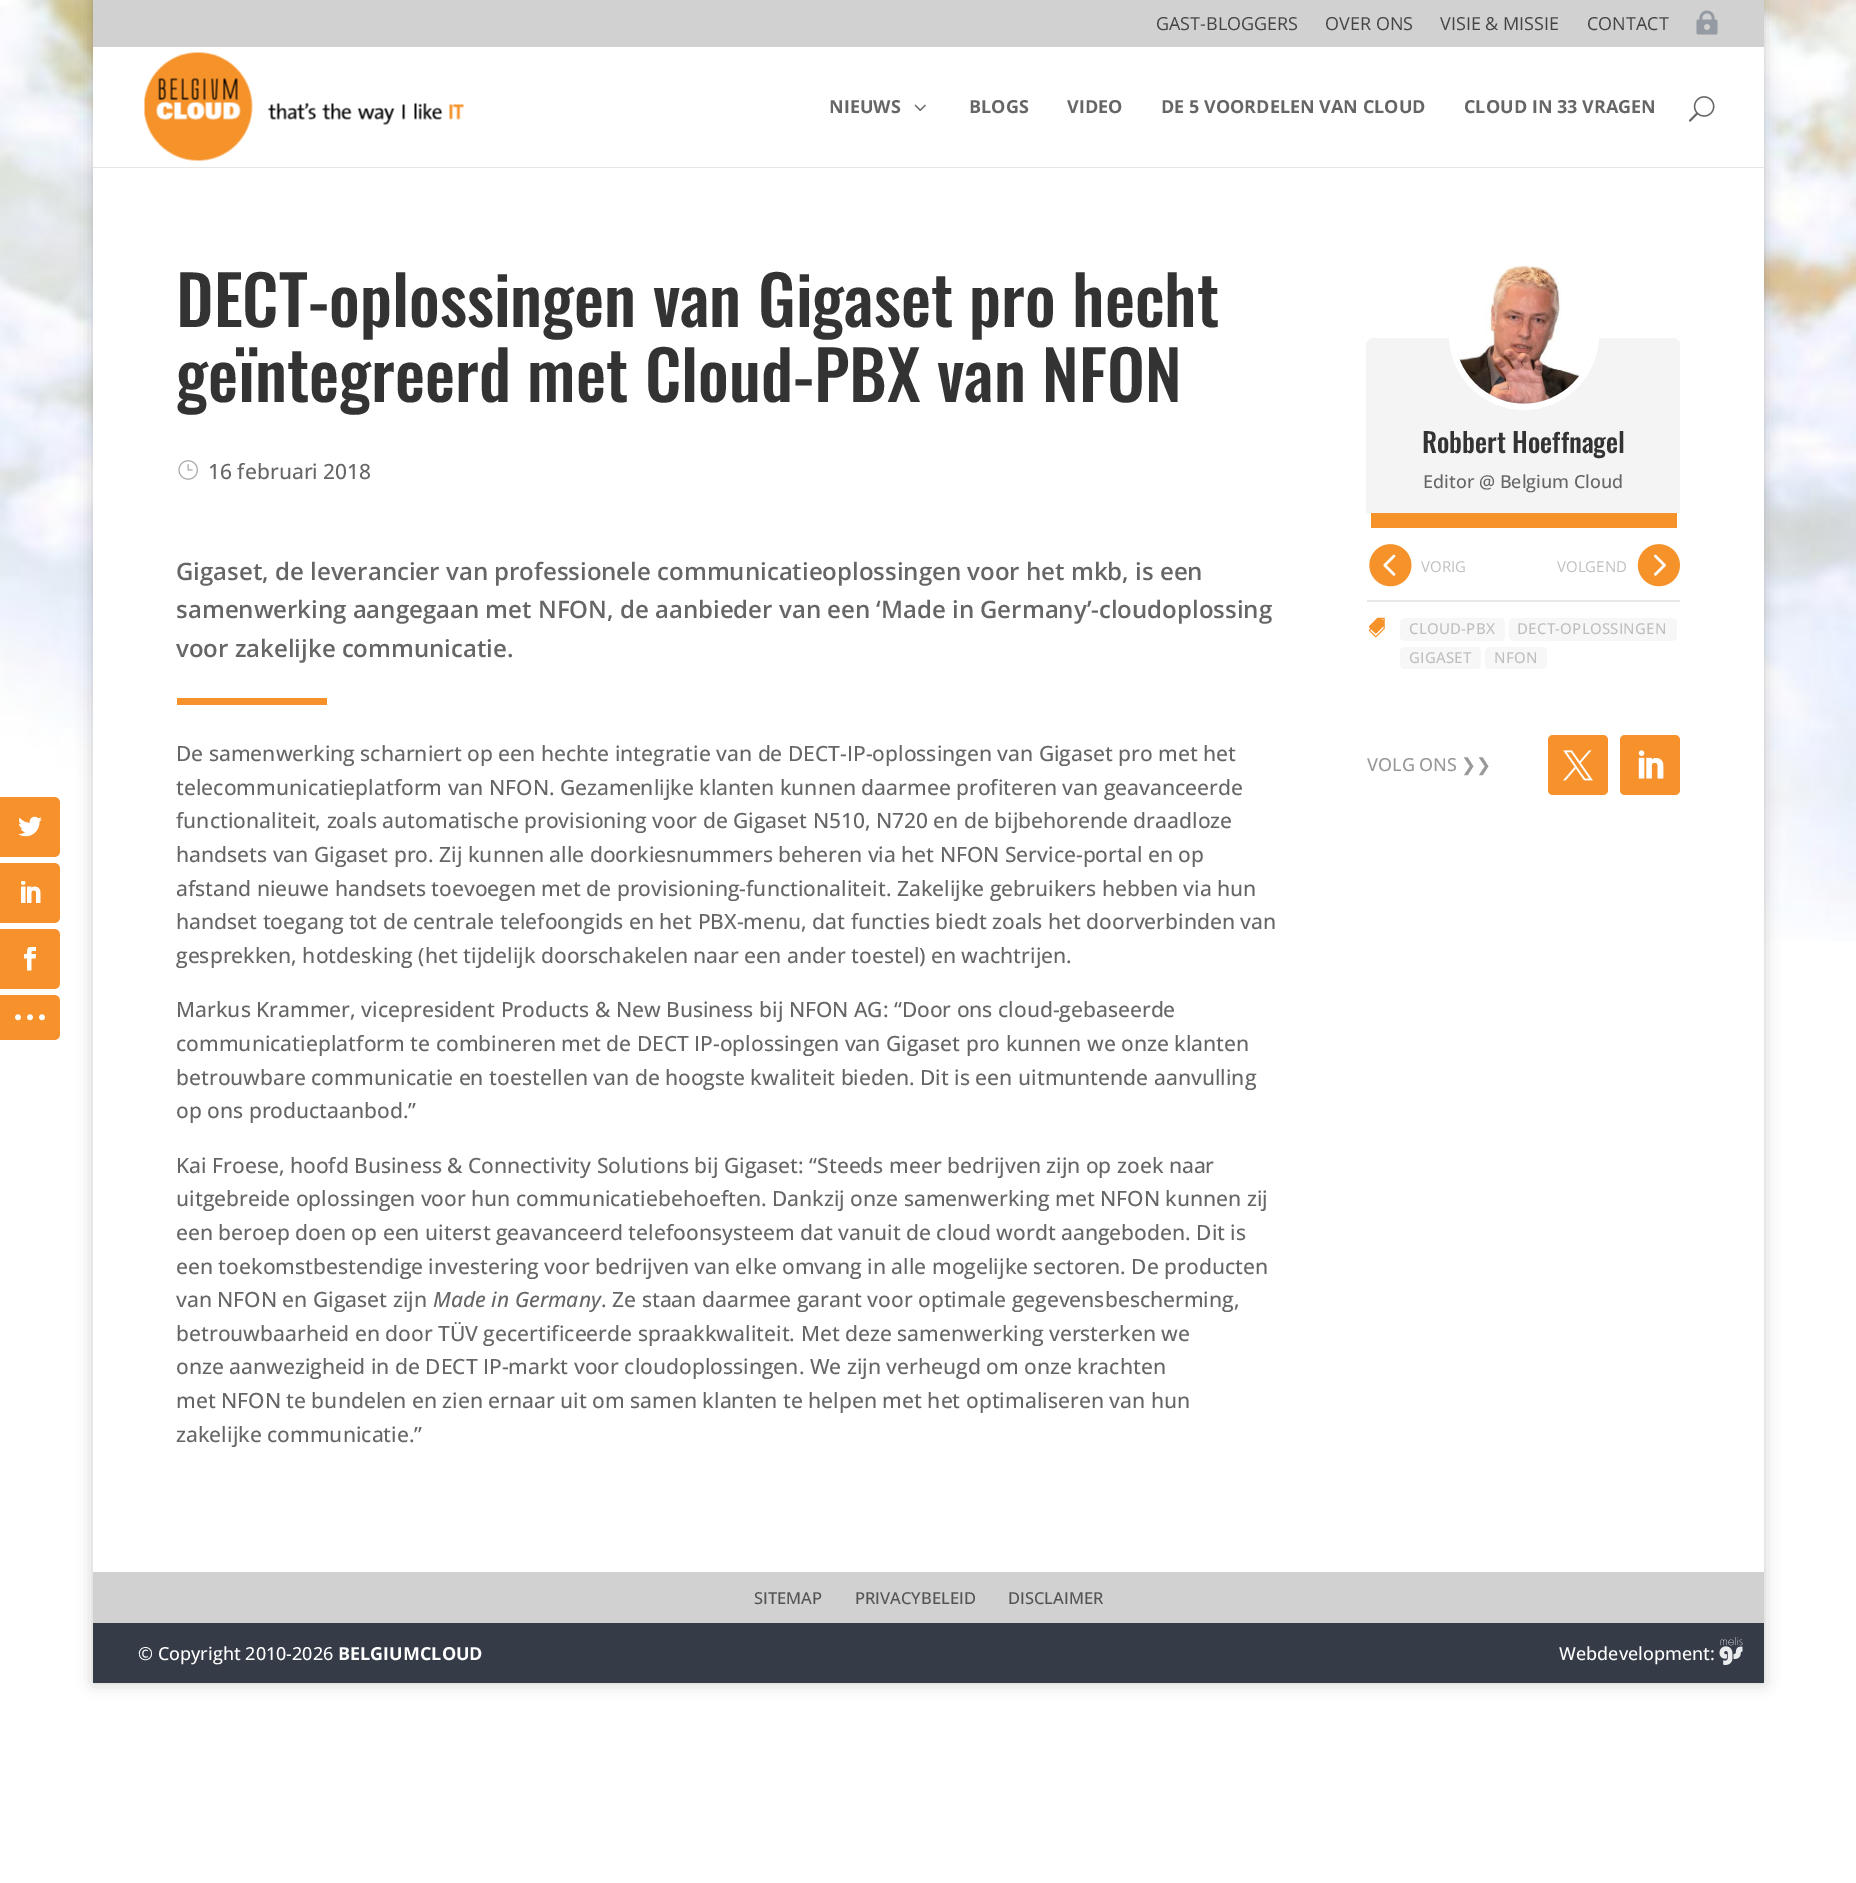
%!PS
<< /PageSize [1856 1883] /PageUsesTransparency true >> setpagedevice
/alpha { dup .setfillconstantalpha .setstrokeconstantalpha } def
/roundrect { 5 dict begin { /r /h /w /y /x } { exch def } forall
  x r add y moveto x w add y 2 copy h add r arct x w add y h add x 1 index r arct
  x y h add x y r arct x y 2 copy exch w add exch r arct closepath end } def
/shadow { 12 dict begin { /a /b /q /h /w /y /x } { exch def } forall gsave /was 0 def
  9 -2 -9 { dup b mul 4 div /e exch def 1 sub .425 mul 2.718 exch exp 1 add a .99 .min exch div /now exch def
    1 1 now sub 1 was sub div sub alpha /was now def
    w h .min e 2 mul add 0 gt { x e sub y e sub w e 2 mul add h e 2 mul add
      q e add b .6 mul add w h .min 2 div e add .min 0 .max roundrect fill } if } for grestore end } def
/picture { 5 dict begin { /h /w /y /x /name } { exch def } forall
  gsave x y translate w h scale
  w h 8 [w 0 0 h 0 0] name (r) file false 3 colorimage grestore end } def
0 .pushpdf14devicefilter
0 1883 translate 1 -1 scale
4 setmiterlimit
1 setgray
0 0 1856 1883 rectfill
(img1.rgb) 0 0 1856 941 picture
0.965 0.569 0.169 setrgbcolor
newpath 0 797 moveto 54 797 lineto 57.5 797 60 799.5 60 803 curveto 60 851 lineto 60 854.5 57.5 857 54 857 curveto 0 857 lineto closepath fill
(img2.rgb) 18 816 24 21 picture
newpath 0 863 moveto 54 863 lineto 57.5 863 60 865.5 60 869 curveto 60 917 lineto 60 920.5 57.5 923 54 923 curveto 0 923 lineto closepath fill
(img3.rgb) 21 881 20 22 picture
newpath 0 929 moveto 54 929 lineto 57.5 929 60 931.5 60 935 curveto 60 983 lineto 60 986.5 57.5 989 54 989 curveto 0 989 lineto closepath fill
(img4.rgb) 24 947 13 24 picture
newpath 0 995 moveto 54 995 lineto 57.5 995 60 997.5 60 1001 curveto 60 1034 lineto 60 1037.5 57.5 1040 54 1040 curveto 0 1040 lineto closepath fill
(img5.rgb) 15 1014 30 7 picture
0 setgray
93 0 1671 1683 0 7.5 0.2 shadow
0.82 setgray
93 0 1671 47 rectfill
/OpenSans-Regular [18 0 0 -18 0 0] selectfont
0.267 setgray
1156 30 moveto (GAST-BLOGGERS) show
1325 30 moveto (OVER ONS) show
1440 30 moveto (VISIE & MISSIE) show
1587 30 moveto (CONTACT) show
(img6.rgb) 1696 10 22 25 picture
1 setgray
93 47 1671 1525 rectfill
0.1 alpha
0 setgray
93 167 1671 1 rectfill
1 alpha
(img7.rgb) 144 52 320 109 picture
/OpenSans-Bold [18 0 0 -18 0 0] selectfont
0.4 setgray
829 113 moveto (NIEUWS) show
(img8.rgb) 914 104 12 7 picture
969 113 moveto (BLOGS) show
1067 113 moveto (VIDEO) show
1161 113 moveto (DE 5 VOORDELEN VAN CLOUD) show
1464 113 moveto (CLOUD IN 33 VRAGEN) show
(img9.rgb) 1688 96 27 26 picture
/Oswald-Medium [67.5 0 0 -67.5 0 0] selectfont
0.2 setgray
176 327 moveto (DECT-oplossingen van Gigaset pro hecht) show
176 402 moveto (geïntegreerd met Cloud-PBX van NFON) show
(img10.rgb) 178 460 20 20 picture
/OpenSans-Medium [21 0 0 -21 0 0] selectfont
0.4 setgray
208 479 moveto (16 februari 2018) show
/OpenSans-SemiBold [24 0 0 -24 0 0] selectfont
176 580 moveto (Gigaset, de leverancier van professionele communicatieoplossingen voor het mkb, is een) show
176 618 moveto (samenwerking aangegaan met NFON, de aanbieder van een ‘Made in Germany’-cloudoplossing) show
176 657 moveto (voor zakelijke communicatie.) show
0.965 0.569 0.169 setrgbcolor
177 698 150 7 rectfill
/OpenSans-Medium [21 0 0 -21 0 0] selectfont
0.4 setgray
176 761 moveto (De samenwerking scharniert op een hechte integratie van de DECT-IP-oplossingen van Gigaset pro met het) show
176 795 moveto (telecommunicatieplatform van NFON. Gezamenlijke klanten kunnen daarmee profiteren van geavanceerde) show
176 828 moveto (functionaliteit, zoals automatische provisioning voor de Gigaset N510, N720 en de bijbehorende draadloze) show
176 862 moveto (handsets van Gigaset pro. Zij kunnen alle doorkiesnummers beheren via het NFON Service-portal en op) show
176 896 moveto (afstand nieuwe handsets toevoegen met de provisioning-functionaliteit. Zakelijke gebruikers hebben via hun) show
176 929 moveto (handset toegang tot de centrale telefoongids en het PBX-menu, dat functies biedt zoals het doorverbinden van) show
176 963 moveto (gesprekken, hotdesking \(het tijdelijk doorschakelen naar een ander toestel\) en wachtrijen.) show
176 1017 moveto (Markus Krammer, vicepresident Products & New Business bij NFON AG: “Door ons cloud-gebaseerde) show
176 1051 moveto (communicatieplatform te combineren met de DECT IP-oplossingen van Gigaset pro kunnen we onze klanten) show
176 1085 moveto (betrouwbare communicatie en toestellen van de hoogste kwaliteit bieden. Dit is een uitmuntende aanvulling) show
176 1118 moveto (op ons productaanbod.”) show
176 1173 moveto (Kai Froese, hoofd Business & Connectivity Solutions bij Gigaset: “Steeds meer bedrijven zijn op zoek naar) show
176 1206 moveto (uitgebreide oplossingen voor hun communicatiebehoeften. Dankzij onze samenwerking met NFON kunnen zij) show
176 1240 moveto (een beroep doen op een uiterst geavanceerd telefoonsysteem dat vanuit de cloud wordt aangeboden. Dit is) show
176 1274 moveto (een toekomstbestendige investering voor bedrijven van elke omvang in alle mogelijke sectoren. De producten) show
176 1307 moveto (van NFON en Gigaset zijn) show
/OpenSans-MediumItalic [21 0 0 -21 0 0] selectfont
433 1307 moveto (Made in Germany) show
/OpenSans-Medium [21 0 0 -21 0 0] selectfont
601 1307 moveto (. Ze staan daarmee garant voor optimale gegevensbescherming,) show
176 1341 moveto (betrouwbaarheid en door TÜV gecertificeerde spraakkwaliteit. Met deze samenwerking versterken we) show
176 1374 moveto (onze aanwezigheid in de DECT IP-markt voor cloudoplossingen. We zijn verheugd om onze krachten) show
176 1408 moveto (met NFON te bundelen en zien ernaar uit om samen klanten te helpen met het optimaliseren van hun) show
176 1442 moveto (zakelijke communicatie.”) show
0.957 setgray
newpath 1374 338 moveto 1672 338 lineto 1677 338 1680 341 1680 345 curveto 1680 513 lineto 1366 513 lineto 1366 345 lineto 1366 341 1370 338 1374 338 curveto closepath fill
1 setgray
6 setlinewidth
newpath 1524 335 72 0 360 arc closepath stroke
(img11.rgb) 1455 265 138 139 picture
0.961 0.573 0.165 setrgbcolor
1371 513 306 15 rectfill
/Oswald-Medium [27 0 0 -27 0 0] selectfont
0.2 setgray
1422 453 moveto (Robbert Hoeffnagel) show
/OpenSans-Medium [18 0 0 -18 0 0] selectfont
0.4 setgray
1423 488 moveto (Editor @ Belgium Cloud) show
(img12.rgb) 1369 544 43 43 picture
/OpenSans-Regular [15 0 0 -15 0 0] selectfont
0.749 setgray
1421 572 moveto (VORIG) show
1557 572 moveto (VOLGEND) show
(img13.rgb) 1637 544 43 43 picture
0.91 setgray
1367 600 313 2 rectfill
(img14.rgb) 1368 617 17 21 picture
0.969 setgray
1400 618 105 23 5 roundrect fill
/OpenSans-Medium [15 0 0 -15 0 0] selectfont
0.749 setgray
1409 634 moveto 0.25 0 (CLOUD-PBX) ashow
0.969 setgray
1509 618 168 23 5 roundrect fill
0.749 setgray
1517 634 moveto 0.25 0 (DECT-OPLOSSINGEN) ashow
0.969 setgray
1400 647 81 22 5 roundrect fill
0.749 setgray
1409 663 moveto 0.25 0 (GIGASET) ashow
0.969 setgray
1485 647 62 22 5 roundrect fill
0.749 setgray
1494 663 moveto 0.25 0 (NFON) ashow
/OpenSans-Medium [18 0 0 -18 0 0] selectfont
0.6 setgray
1367 771 moveto (VOLG ONS) show
/DejaVuSans-Regular [18 0 0 -18 0 0] selectfont
1461 771 moveto (❯❯) show
0.965 0.569 0.169 setrgbcolor
1548 735 60 60 5 roundrect fill
(img15.rgb) 1563 750 30 31 picture
1620 735 60 60 5 roundrect fill
(img16.rgb) 1638 750 26 29 picture
0.82 setgray
93 1572 1671 51 rectfill
/OpenSans-Medium [16.5 0 0 -16.5 0 0] selectfont
0.329 setgray
754 1604 moveto (SITEMAP) show
855 1604 moveto (PRIVACYBELEID) show
1008 1604 moveto (DISCLAIMER) show
0.212 0.231 0.282 setrgbcolor
93 1623 1671 60 rectfill
/OpenSans-Medium [18 0 0 -18 0 0] selectfont
1 setgray
138 1660 moveto (© Copyright 2010-2026) show
/OpenSans-Bold [18 0 0 -18 0 0] selectfont
338 1660 moveto (BELGIUMCLOUD) show
/OpenSans-Medium [18 0 0 -18 0 0] selectfont
1559 1660 moveto (Webdevelopment:) show
(img17.rgb) 1719 1637 24 28 picture
.poppdf14devicefilter showpage
